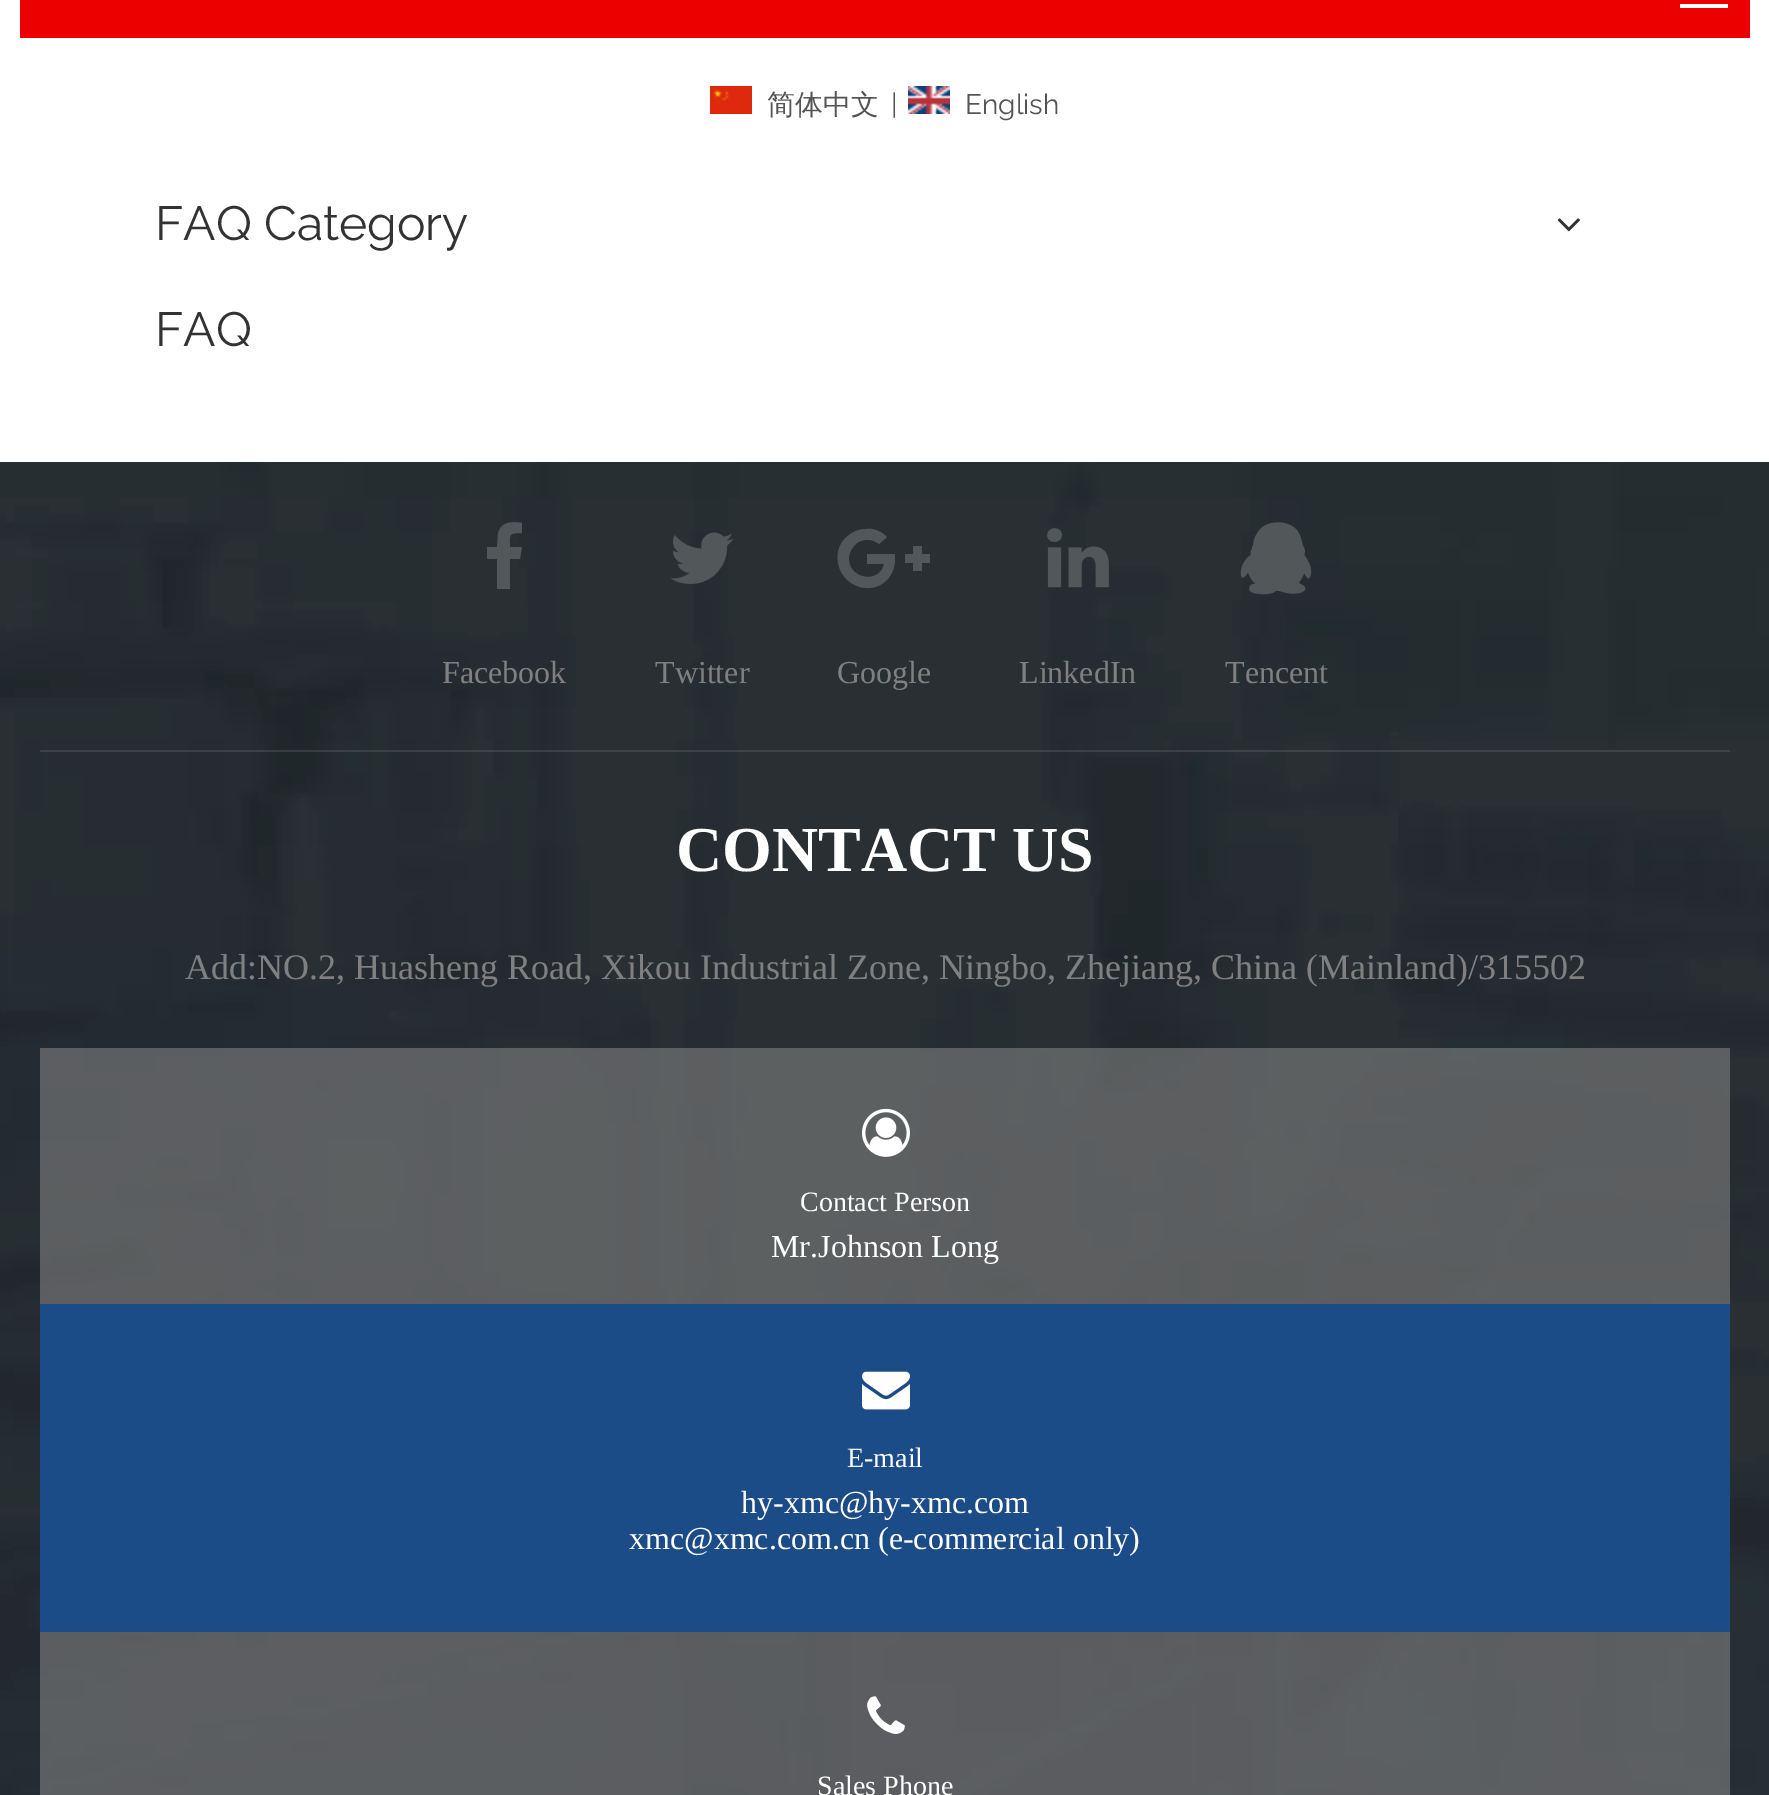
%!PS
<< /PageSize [1769 1795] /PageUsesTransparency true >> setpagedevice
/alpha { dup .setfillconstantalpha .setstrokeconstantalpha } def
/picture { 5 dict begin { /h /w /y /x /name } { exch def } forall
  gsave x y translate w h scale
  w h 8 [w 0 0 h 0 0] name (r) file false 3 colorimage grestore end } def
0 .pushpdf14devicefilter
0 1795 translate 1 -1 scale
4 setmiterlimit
1 setgray
0 0 1769 1795 rectfill
0.929 0 0 setrgbcolor
20 0 1730 38 rectfill
1 setgray
1680 4 48 4 rectfill
(img1.rgb) 710 86 42 28 picture
/WenQuanYiZenHei-Medium [28 0 0 -28 0 0] selectfont
0.329 setgray
767 114 moveto (简体中文) show
/Raleway-Thin [28 0 0 -28 0 0] selectfont
891 114 moveto (|) show
(img2.rgb) 908 86 42 28 picture
965 114 moveto (English) show
/Raleway-Thin [48 0 0 -48 0 0] selectfont
0.2 setgray
155 240 moveto (FAQ Category) show
(img3.rgb) 1557 218 23 14 picture
155 346 moveto (FAQ) show
(img4.rgb) 0 462 1769 1333 picture
0.1 alpha
1 setgray
40 750 1690 2 rectfill
1 alpha
0.322 0.341 0.353 setrgbcolor
newpath 522 523 moveto 522 533 lineto 508 533 510 534 510 547 curveto 522 547 lineto 520 559 lineto 510 559 lineto 510 589 lineto 497 589 lineto 497 559 lineto 487 559 lineto 487 547 lineto 497 547 lineto 498 534 lineto 500 522 512 521 522 523 curveto closepath fill
/LiberationSerif-Regular [32 0 0 -32 0 0] selectfont
0.502 setgray
442 683 moveto (Facebook) show
(img5.rgb) 670 532 64 52 picture
655 683 moveto (Twitter) show
0.322 0.341 0.353 setrgbcolor
newpath 895 559 moveto 895 574 885 587 869 588 curveto 840 589 826 552 849 535 curveto 854 531 860 529 866 529 curveto 874 528 881 531 887 537 curveto 879 544 lineto 873 539 864 538 857 543 curveto 853 546 850 551 849 556 curveto 846 579 880 585 884 564 curveto 867 564 lineto 867 554 lineto 895 554 lineto closepath 930 554 moveto 930 563 lineto 922 563 lineto 922 571 lineto 913 571 lineto 913 563 lineto 905 563 lineto 905 554 lineto 913 554 lineto 913 546 lineto 922 546 lineto 922 554 lineto closepath fill
0.502 setgray
837 683 moveto (Google) show
(img6.rgb) 1047 528 62 60 picture
1019 683 moveto (LinkedIn) show
(img7.rgb) 1240 522 72 73 picture
1225 683 moveto (Tencent) show
/LiberationSerif-Bold [64 0 0 -64 0 0] selectfont
1 setgray
676 871 moveto (CONTACT US) show
/LiberationSerif-Regular [36 0 0 -36 0 0] selectfont
0.502 setgray
185 979 moveto (Add:NO.2, Huasheng Road, Xikou Industrial Zone, Ningbo, Zhejiang, China \(Mainland\)/315502) show
0.6 alpha
40 1048 1690 256 rectfill
1 alpha
(img8.rgb) 862 1108 48 49 picture
/LiberationSerif-Regular [28 0 0 -28 0 0] selectfont
1 setgray
800 1211 moveto (Contact Person) show
/LiberationSerif-Regular [32 0 0 -32 0 0] selectfont
771 1257 moveto (Mr.Johnson Long) show
0.11 0.298 0.529 setrgbcolor
40 1304 1690 328 rectfill
(img9.rgb) 862 1371 48 39 picture
/LiberationSerif-Regular [28 0 0 -28 0 0] selectfont
1 setgray
847 1467 moveto (E-mail) show
/LiberationSerif-Regular [32 0 0 -32 0 0] selectfont
741 1513 moveto (hy-xmc@hy-xmc.com) show
629 1549 moveto (xmc@xmc.com.cn \(e-commercial only\)) show
0.6 alpha
0.502 setgray
40 1632 1690 163 rectfill
1 alpha
(img10.rgb) 867 1696 38 38 picture
/LiberationSerif-Regular [28 0 0 -28 0 0] selectfont
1 setgray
817 1795 moveto (Sales Phone) show
.poppdf14devicefilter showpage
